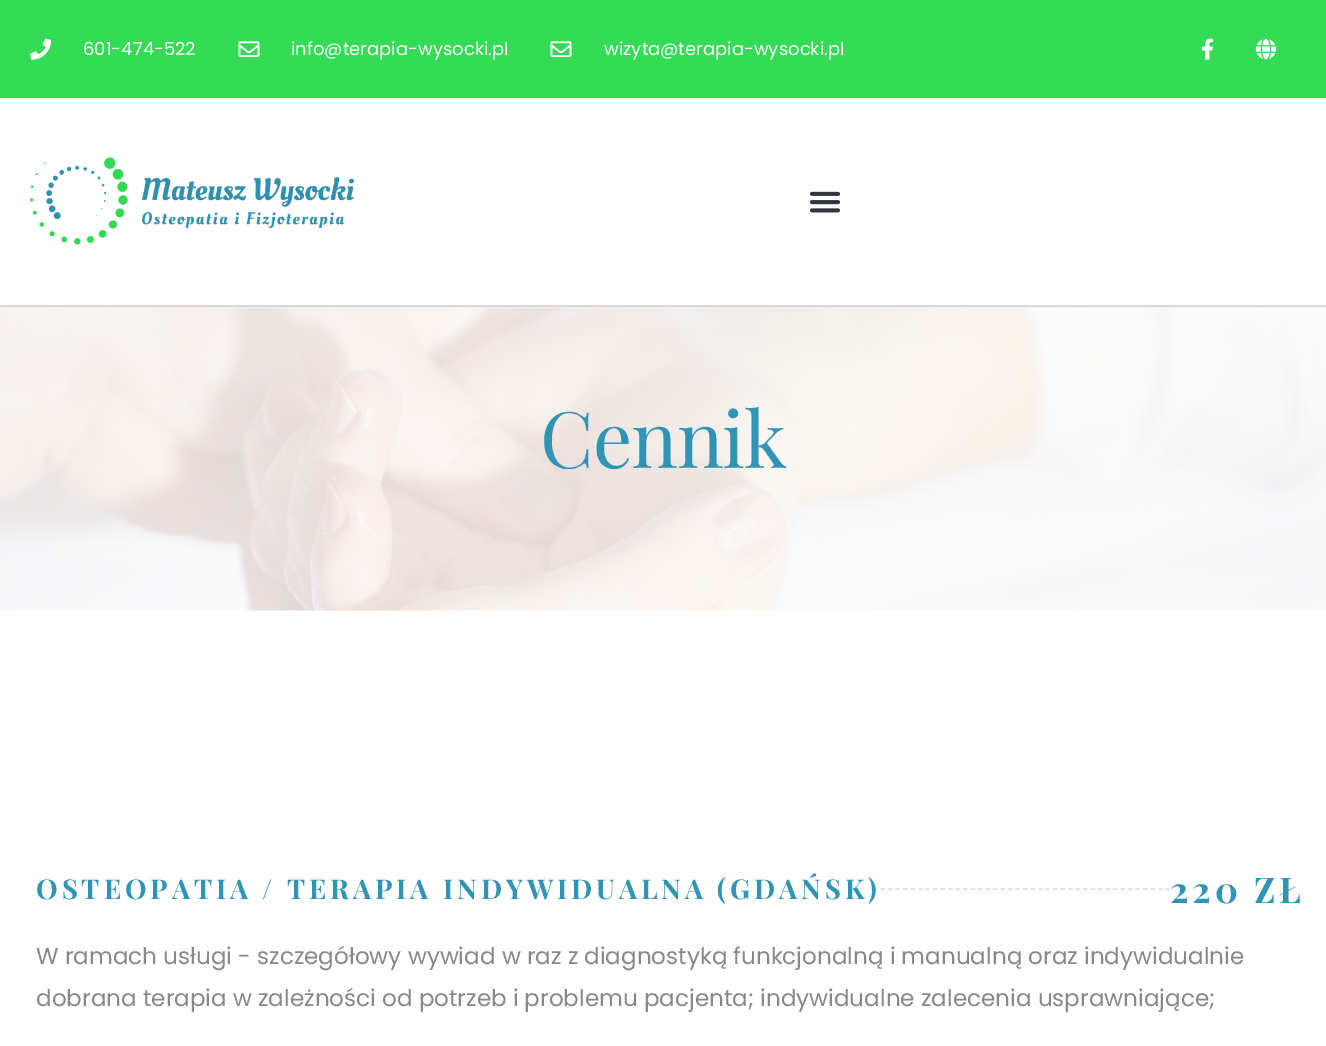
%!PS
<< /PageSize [1326 1046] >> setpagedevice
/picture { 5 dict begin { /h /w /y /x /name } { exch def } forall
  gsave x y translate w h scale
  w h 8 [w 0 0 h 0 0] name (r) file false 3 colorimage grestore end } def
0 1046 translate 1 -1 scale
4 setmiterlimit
1 setgray
0 0 1326 1046 rectfill
0.945 setgray
0 307 1326 1 rectfill
0.2 0.863 0.329 setrgbcolor
0 0 1326 98 rectfill
(img1.rgb) 30 38 21 22 picture
/Poppins-Regular [18 0 0 -18 0 0] selectfont
1 setgray
83 55 moveto (601-474-522) show
(img2.rgb) 238 41 22 16 picture
291 55 moveto (info@terapia-wysocki.pl) show
(img2.rgb) 550 41 22 16 picture
604 55 moveto (wizyta@terapia-wysocki.pl) show
(img3.rgb) 1201 38 13 22 picture
(img4.rgb) 1255 39 22 21 picture
0.847 setgray
0 305 1326 2 rectfill
(img5.rgb) 30 157 324 88 picture
(img6.rgb) 809 191 32 22 picture
(img7.rgb) 0 308 1326 303 picture
/PlayfairDisplay-Regular [78 0 0 -78 0 0] selectfont
0.188 0.58 0.706 setrgbcolor
540 468 moveto -1 0 (Cennik) ashow
/PlayfairDisplay-Bold [27.3 0 0 -27.3 0 0] selectfont
36 899 moveto 3.9 0 (OSTEOPATIA / TERAPIA INDYWIDUALNA \(GDAŃSK\)) ashow
0.867 setgray
1.5 setlinewidth
[4.5 3] 0 setdash
newpath 880.5 889 moveto 1170 889 lineto stroke
/PlayfairDisplay-Bold [35.5 0 0 -35.5 0 0] selectfont
0.188 0.58 0.706 setrgbcolor
1170 903 moveto 3.9 0 (220 ZŁ) ashow
/Poppins-Regular [23.1 0 0 -23.1 0 0] selectfont
0.533 setgray
36 964 moveto (W ramach usługi - szczegółowy wywiad w raz z diagnostyką funkcjonalną i manualną oraz indywidualnie) show
36 1006 moveto (dobrana terapia w zależności od potrzeb i problemu pacjenta; indywidualne zalecenia usprawniające;) show
showpage
